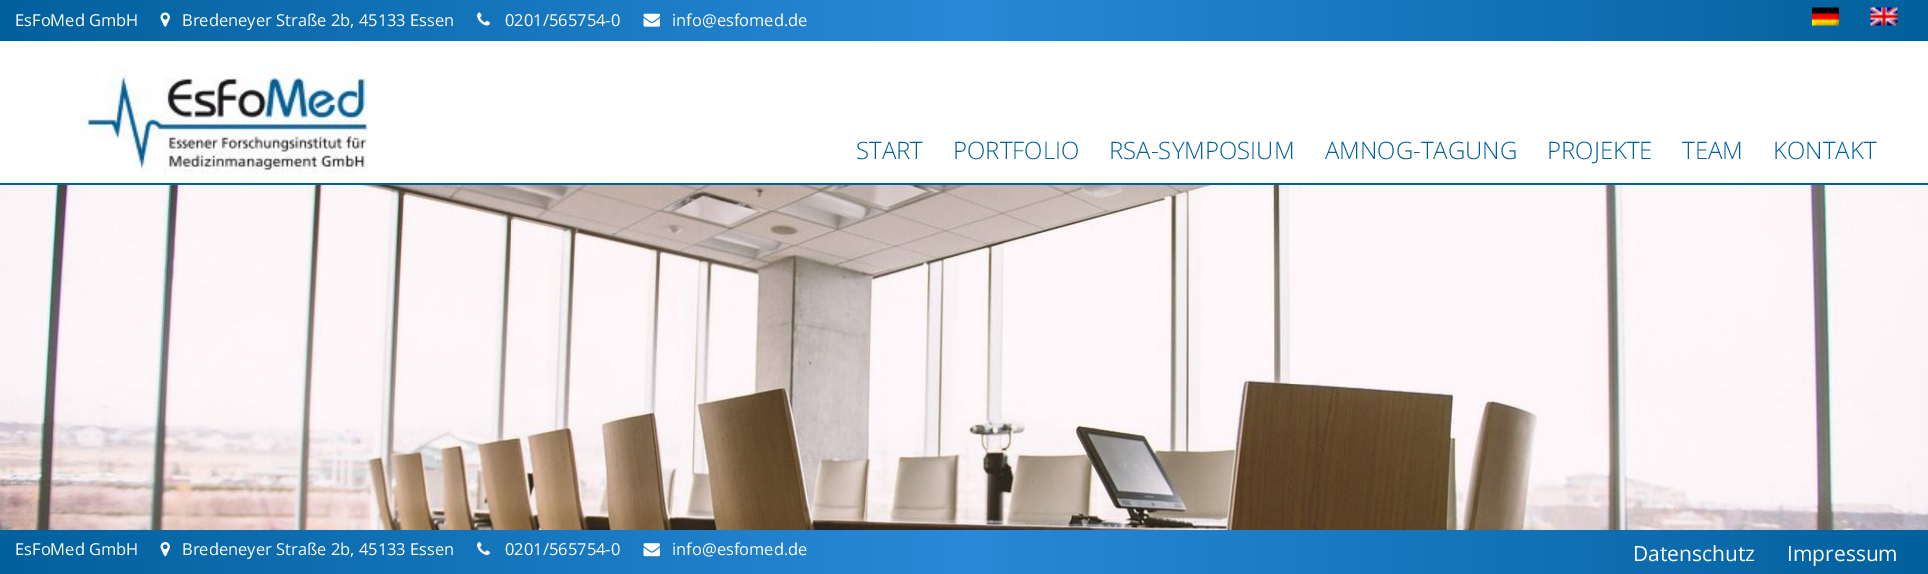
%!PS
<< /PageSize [1928 574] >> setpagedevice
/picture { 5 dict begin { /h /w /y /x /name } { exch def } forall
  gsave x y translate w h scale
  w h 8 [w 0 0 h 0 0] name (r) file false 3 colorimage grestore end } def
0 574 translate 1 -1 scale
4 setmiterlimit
1 setgray
0 0 1928 574 rectfill
gsave newpath 0 0 moveto 1928 0 lineto 1928 41 lineto 0 41 lineto closepath clip newpath
<< /ShadingType 2 /ColorSpace /DeviceRGB /Coords [0 20 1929 20] /Extend [true true] /Function << /FunctionType 3 /Domain [0 1] /Functions [<< /FunctionType 2 /Domain [0 1] /C0 [0.004 0.38 0.616] /C1 [0.161 0.537 0.847] /N 1 >> << /FunctionType 2 /Domain [0 1] /C0 [0.161 0.537 0.847] /C1 [0.004 0.38 0.616] /N 1 >>] /Bounds [0.5] /Encode [0 1 0 1] >> >> shfill grestore
/OpenSans-Regular [16.5 0 0 -16.5 0 0] selectfont
15 26 moveto (EsFoMed GmbH) show
(img1.rgb) 160 12 10 15 picture
182 26 moveto (Bredeneyer Straße 2b, 45133 Essen) show
(img2.rgb) 477 12 13 14 picture
505 26 moveto (0201/565754-0) show
(img3.rgb) 643 13 17 14 picture
672 26 moveto (info@esfomed.de) show
(img4.rgb) 1812 7 27 19 picture
(img5.rgb) 1870 7 28 19 picture
0.004 0.38 0.616 setrgbcolor
0 183 1928 2 rectfill
(img6.rgb) 79 66 290 109 picture
/OpenSans-Light [24 0 0 -24 0 0] selectfont
856 159 moveto (START) show
953 159 moveto (PORTFOLIO) show
1109 159 moveto (RSA-SYMPOSIUM) show
1325 159 moveto (AMNOG-TAGUNG) show
1547 159 moveto (PROJEKTE) show
1682 159 moveto (TEAM) show
1773 159 moveto (KONTAKT) show
(img7.rgb) 0 185 1928 345 picture
gsave newpath 0 530 moveto 1928 530 lineto 1928 574 lineto 0 574 lineto closepath clip newpath
<< /ShadingType 2 /ColorSpace /DeviceRGB /Coords [0 553 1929 553] /Extend [true true] /Function << /FunctionType 3 /Domain [0 1] /Functions [<< /FunctionType 2 /Domain [0 1] /C0 [0.004 0.38 0.616] /C1 [0.161 0.537 0.847] /N 1 >> << /FunctionType 2 /Domain [0 1] /C0 [0.161 0.537 0.847] /C1 [0.004 0.38 0.616] /N 1 >>] /Bounds [0.5] /Encode [0 1 0 1] >> >> shfill grestore
/OpenSans-Regular [16.5 0 0 -16.5 0 0] selectfont
1 setgray
15 555 moveto (EsFoMed GmbH) show
(img8.rgb) 160 542 10 15 picture
182 555 moveto (Bredeneyer Straße 2b, 45133 Essen) show
(img9.rgb) 477 542 13 13 picture
505 555 moveto (0201/565754-0) show
(img10.rgb) 643 543 17 14 picture
672 555 moveto (info@esfomed.de) show
/OpenSans-Regular [21 0 0 -21 0 0] selectfont
1633 561 moveto (Datenschutz) show
1787 561 moveto (Impressum) show
showpage
